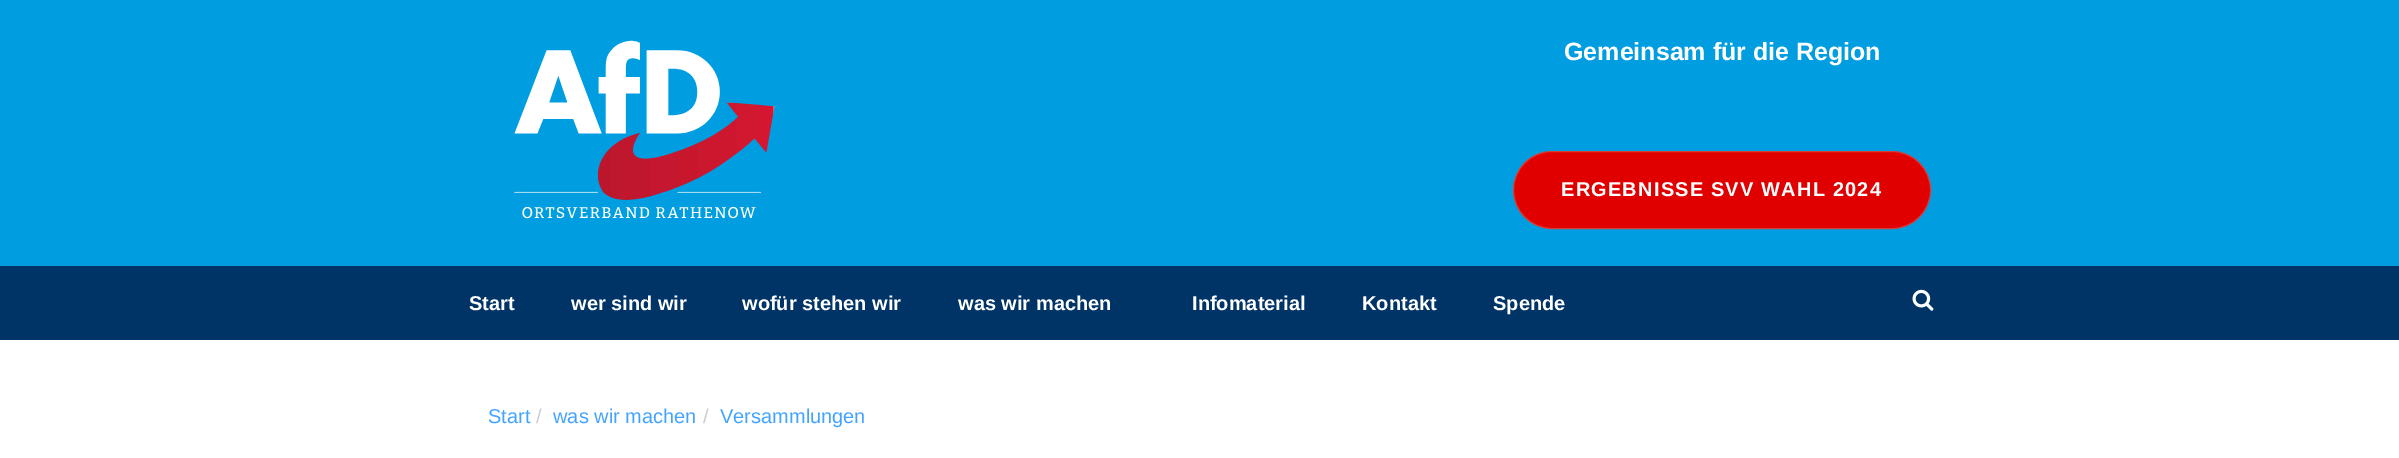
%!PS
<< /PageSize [2399 458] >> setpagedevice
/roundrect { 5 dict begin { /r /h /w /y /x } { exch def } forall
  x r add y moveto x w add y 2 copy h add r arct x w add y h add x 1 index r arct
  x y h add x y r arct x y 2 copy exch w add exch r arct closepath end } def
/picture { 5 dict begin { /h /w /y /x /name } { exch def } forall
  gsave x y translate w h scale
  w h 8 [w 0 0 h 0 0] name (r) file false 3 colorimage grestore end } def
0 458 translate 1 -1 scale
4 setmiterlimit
1 setgray
0 0 2399 458 rectfill
0 0.62 0.878 setrgbcolor
0 0 2399 266 rectfill
(img1.rgb) 514 40 261 179 picture
/LiberationSans-Bold [25 0 0 -25 0 0] selectfont
1 setgray
1564 60 moveto (Gemeinsam für die Region) show
0.882 0 0 setrgbcolor
1513.5 151.5 417 77 38.5 roundrect gsave fill grestore
0.831 0.247 0.227 setrgbcolor
stroke
/LiberationSans-Bold [20 0 0 -20 0 0] selectfont
1 setgray
1561 196 moveto 1.2 0 (ERGEBNISSE SVV WAHL 2024) ashow
0 0.2 0.4 setrgbcolor
0 266 2399 74 rectfill
1 setgray
469 310 moveto (Start) show
571 310 moveto (wer sind wir) show
742 310 moveto (wofür stehen wir) show
958 310 moveto (was wir machen) show
1192 310 moveto (Infomaterial) show
1362 310 moveto (Kontakt) show
1493 310 moveto (Spende) show
(img2.rgb) 1912 289 22 22 picture
/LiberationSans-Regular [20 0 0 -20 0 0] selectfont
0.259 0.643 1 setrgbcolor
488 423 moveto (Start) show
0.8 setgray
536 423 moveto (/) show
0.259 0.643 1 setrgbcolor
553 423 moveto (was wir machen) show
0.8 setgray
703 423 moveto (/) show
0.259 0.643 1 setrgbcolor
720 423 moveto (Versammlungen) show
showpage
